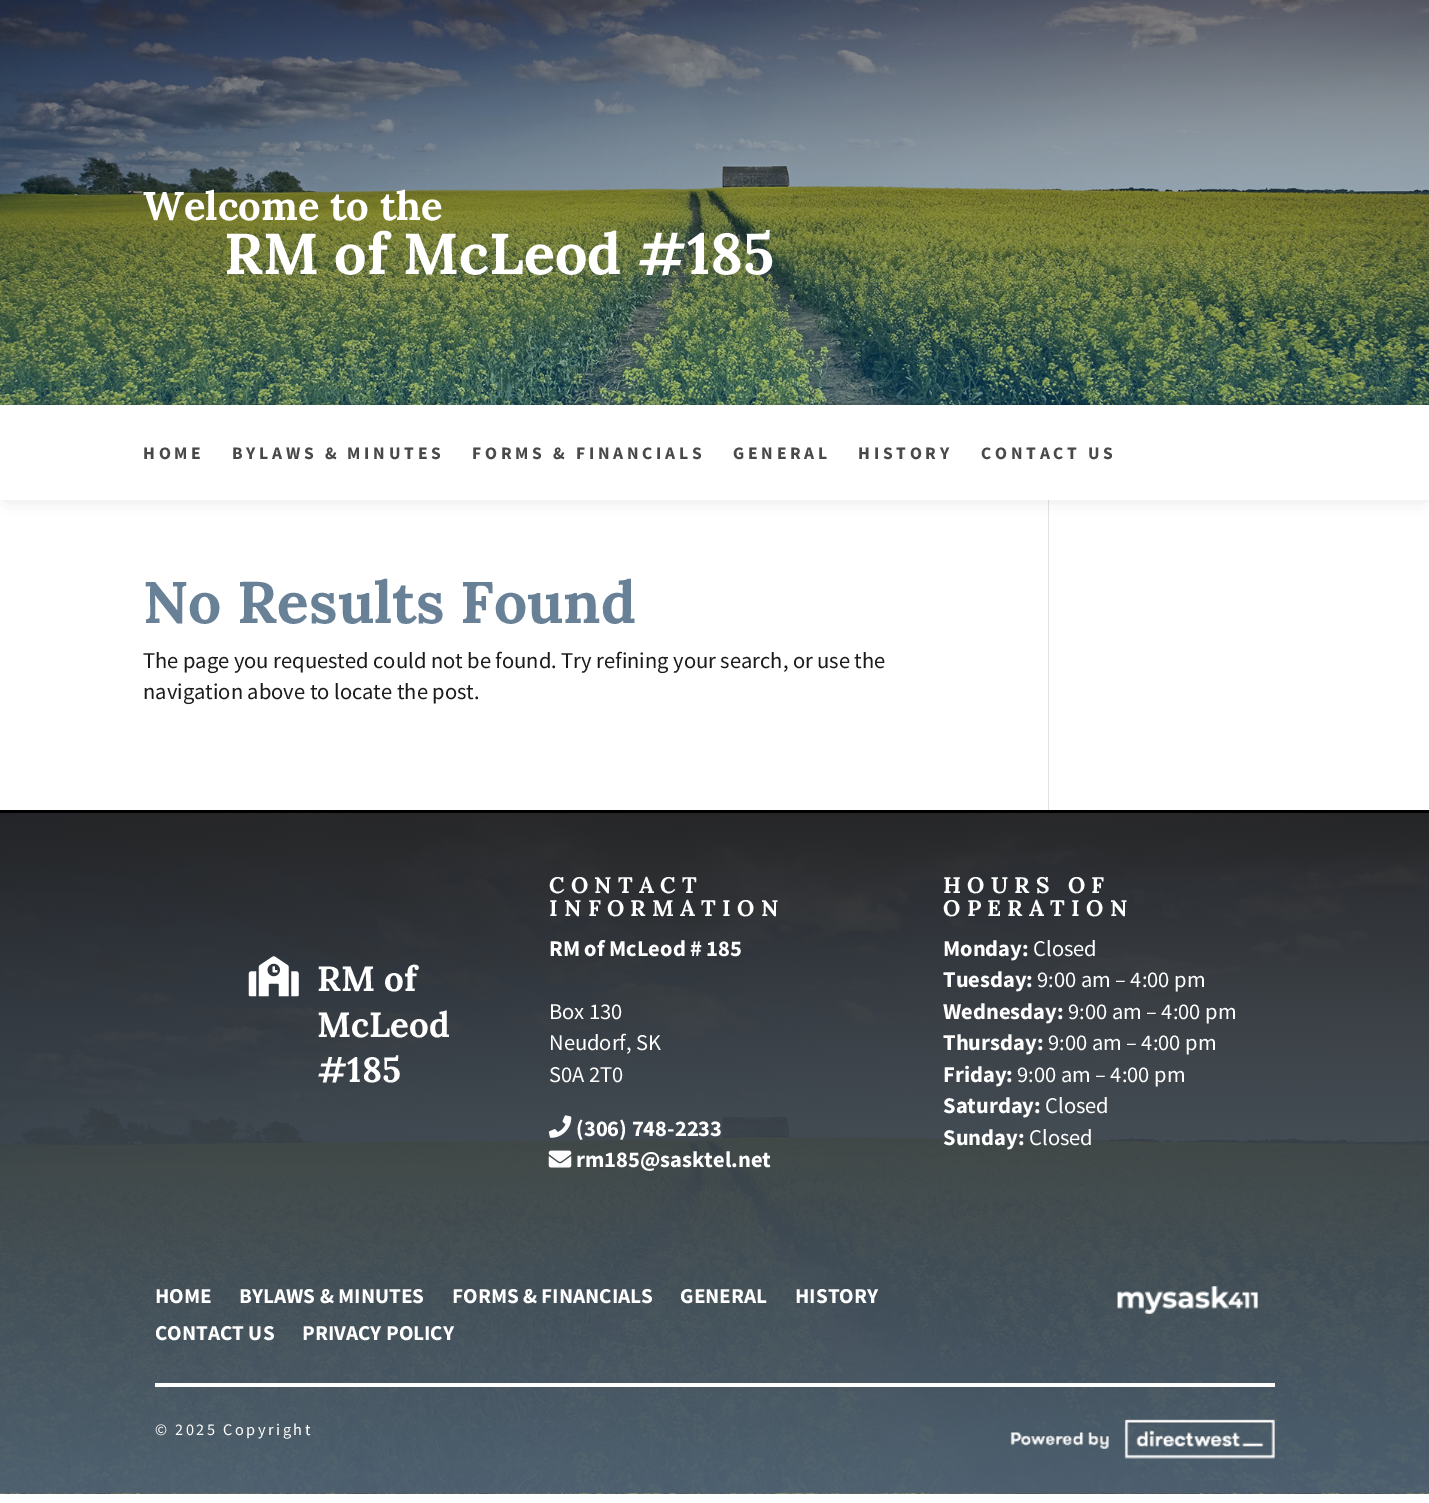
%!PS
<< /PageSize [1429 1503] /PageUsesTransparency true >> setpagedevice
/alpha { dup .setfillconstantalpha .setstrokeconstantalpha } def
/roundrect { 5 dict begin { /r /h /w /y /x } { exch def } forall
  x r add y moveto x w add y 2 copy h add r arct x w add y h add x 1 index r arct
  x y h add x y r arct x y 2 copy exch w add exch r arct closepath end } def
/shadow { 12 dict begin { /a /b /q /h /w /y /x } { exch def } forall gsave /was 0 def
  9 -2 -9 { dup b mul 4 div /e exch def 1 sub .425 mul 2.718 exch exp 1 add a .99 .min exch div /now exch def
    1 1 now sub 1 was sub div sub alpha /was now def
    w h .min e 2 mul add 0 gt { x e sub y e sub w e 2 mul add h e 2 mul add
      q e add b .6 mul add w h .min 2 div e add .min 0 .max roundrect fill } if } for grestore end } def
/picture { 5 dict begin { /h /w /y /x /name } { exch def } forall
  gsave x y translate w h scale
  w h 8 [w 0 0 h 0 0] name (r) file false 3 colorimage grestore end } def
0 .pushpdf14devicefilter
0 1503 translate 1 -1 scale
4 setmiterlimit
1 setgray
0 0 1429 1503 rectfill
(img1.rgb) 0 0 1429 405 picture
/Lora-Bold [40 0 0 -40 0 0] selectfont
143 220 moveto (Welcome to the) show
/Lora-Bold [57.5 0 0 -57.5 0 0] selectfont
224 274 moveto (RM of McLeod #185) show
0.886 setgray
1048 500 1 310 rectfill
gsave
newpath 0 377 moveto 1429 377 lineto 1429 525 lineto 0 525 lineto closepath 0 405 moveto 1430 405 lineto 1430 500 lineto 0 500 lineto closepath eoclip newpath
0 setgray
8 411 1415 80 0 11 0.3 shadow
grestore
/SourceSansPro-Bold [17.5 0 0 -17.5 0 0] selectfont
0.286 setgray
143 459 moveto 3.75 0 (HOME) ashow
232 459 moveto 3.75 0 (BYLAWS & MINUTES) ashow
472 459 moveto 3.75 0 (FORMS & FINANCIALS) ashow
733 459 moveto 3.75 0 (GENERAL) ashow
858 459 moveto 3.75 0 (HISTORY) ashow
981 459 moveto 3.75 0 (CONTACT US) ashow
/Lora-Bold [58.75 0 0 -58.75 0 0] selectfont
0.408 0.506 0.592 setrgbcolor
143 623 moveto (No Results Found) show
/SourceSansPro-Regular [22.5 0 0 -22.5 0 0] selectfont
0.11 setgray
143 668 moveto (The page you requested could not be found. Try refining your search, or use the) show
143 699 moveto (navigation above to locate the post.) show
(img2.rgb) 0 813 1429 681 picture
0 setgray
0 810 1429 3 rectfill
(img3.rgb) 248 956 51 41 picture
/Lora-Bold [35 0 0 -35 0 0] selectfont
1 setgray
317 991 moveto (RM of) show
317 1037 moveto (McLeod) show
317 1082 moveto (#185) show
/Lora-Bold [22.5 0 0 -22.5 0 0] selectfont
549 893 moveto 6.25 0 (CONTACT) ashow
549 916 moveto 6.25 0 (INFORMATION) ashow
/SourceSansPro-Bold [22.5 0 0 -22.5 0 0] selectfont
549 956 moveto (RM of McLeod # 185) show
/SourceSansPro-Regular [22.5 0 0 -22.5 0 0] selectfont
549 1019 moveto (Box 130) show
549 1050 moveto (Neudorf, SK) show
549 1082 moveto (S0A 2T0) show
(img4.rgb) 548 1115 24 23 picture
/SourceSansPro-Bold [22.5 0 0 -22.5 0 0] selectfont
576 1136 moveto (\(306\) 748-2233) show
(img5.rgb) 548 1150 24 18 picture
576 1167 moveto (rm185@sasktel.net) show
/Lora-Bold [22.5 0 0 -22.5 0 0] selectfont
943 893 moveto 6.25 0 (HOURS OF) ashow
943 916 moveto 6.25 0 (OPERATION) ashow
/SourceSansPro-Bold [22.5 0 0 -22.5 0 0] selectfont
943 956 moveto (Monday:) show
/SourceSansPro-Regular [22.5 0 0 -22.5 0 0] selectfont
1033 956 moveto (Closed) show
/SourceSansPro-Bold [22.5 0 0 -22.5 0 0] selectfont
943 987 moveto (Tuesday:) show
/SourceSansPro-Regular [22.5 0 0 -22.5 0 0] selectfont
1037 987 moveto (9:00 am – 4:00 pm) show
/SourceSansPro-Bold [22.5 0 0 -22.5 0 0] selectfont
943 1019 moveto (Wednesday:) show
/SourceSansPro-Regular [22.5 0 0 -22.5 0 0] selectfont
1068 1019 moveto (9:00 am – 4:00 pm) show
/SourceSansPro-Bold [22.5 0 0 -22.5 0 0] selectfont
943 1050 moveto (Thursday:) show
/SourceSansPro-Regular [22.5 0 0 -22.5 0 0] selectfont
1048 1050 moveto (9:00 am – 4:00 pm) show
/SourceSansPro-Bold [22.5 0 0 -22.5 0 0] selectfont
943 1082 moveto (Friday:) show
/SourceSansPro-Regular [22.5 0 0 -22.5 0 0] selectfont
1017 1082 moveto (9:00 am – 4:00 pm) show
/SourceSansPro-Bold [22.5 0 0 -22.5 0 0] selectfont
943 1113 moveto (Saturday:) show
/SourceSansPro-Regular [22.5 0 0 -22.5 0 0] selectfont
1045 1113 moveto (Closed) show
/SourceSansPro-Bold [22.5 0 0 -22.5 0 0] selectfont
943 1145 moveto (Sunday:) show
/SourceSansPro-Regular [22.5 0 0 -22.5 0 0] selectfont
1029 1145 moveto (Closed) show
/SourceSansPro-Bold [21.25 0 0 -21.25 0 0] selectfont
155 1303 moveto (HOME) show
239 1303 moveto (BYLAWS & MINUTES) show
452 1303 moveto (FORMS & FINANCIALS) show
680 1303 moveto (GENERAL) show
795 1303 moveto (HISTORY) show
155 1340 moveto (CONTACT US) show
302 1340 moveto (PRIVACY POLICY) show
(img6.rgb) 1117 1286 141 28 picture
155 1383 1120 4 rectfill
/SourceSansPro-Regular [16.25 0 0 -16.25 0 0] selectfont
155 1435 moveto 2.5 0 (© 2025 Copyright) ashow
(img7.rgb) 1010 1419 265 40 picture
.poppdf14devicefilter showpage
